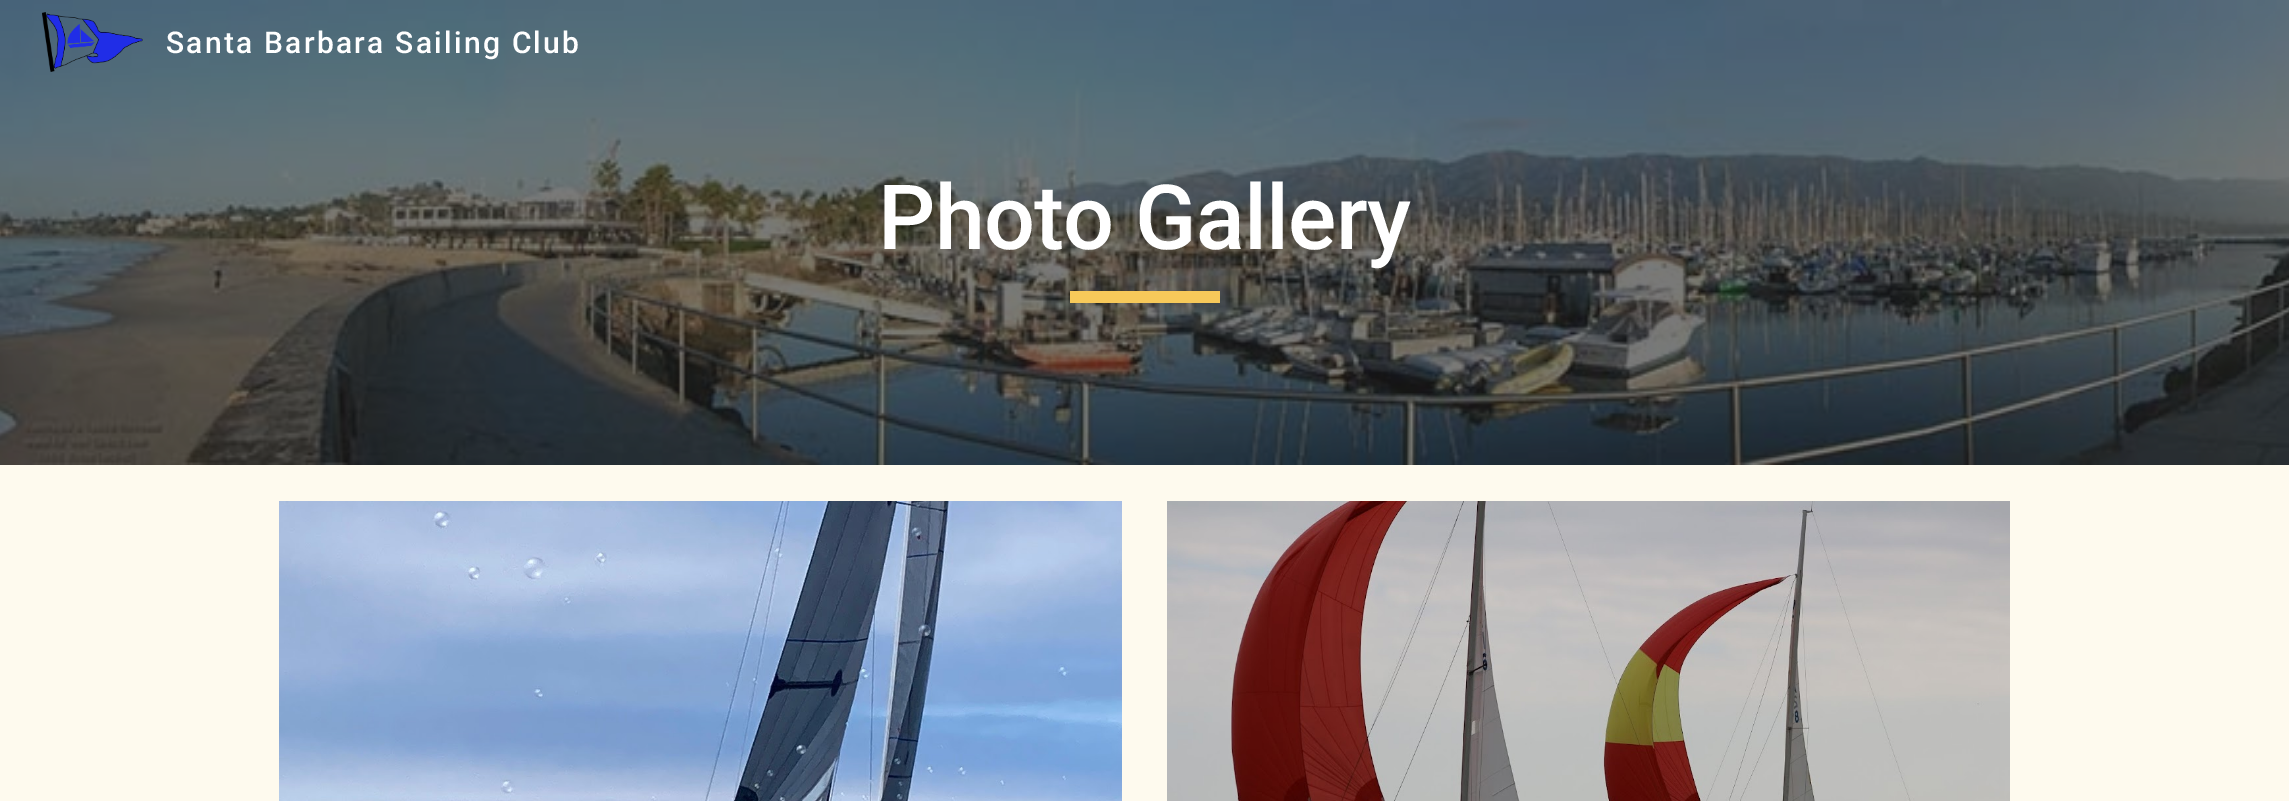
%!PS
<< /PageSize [2289 801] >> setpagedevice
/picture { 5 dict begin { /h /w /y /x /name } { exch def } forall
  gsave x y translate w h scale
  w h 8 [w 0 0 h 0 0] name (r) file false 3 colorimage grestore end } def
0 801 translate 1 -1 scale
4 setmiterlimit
1 setgray
0 0 2289 801 rectfill
(img2.rgb) 0 0 2289 465 picture
(img1.rgb) 42 12 101 60 picture
/Roboto-Medium [30 0 0 -30 0 0] selectfont
166 53 moveto 2.25 0 (Santa Barbara Sailing Club) ashow
/Roboto-Medium [90 0 0 -90 0 0] selectfont
878 249 moveto -0.75 0 (Photo Gallery) ashow
0.969 0.788 0.353 setrgbcolor
1070 291 150 12 rectfill
0.996 0.98 0.933 setrgbcolor
0 465 2289 336 rectfill
(img3.rgb) 279 501 843 300 picture
(img4.rgb) 1167 501 843 300 picture
showpage
